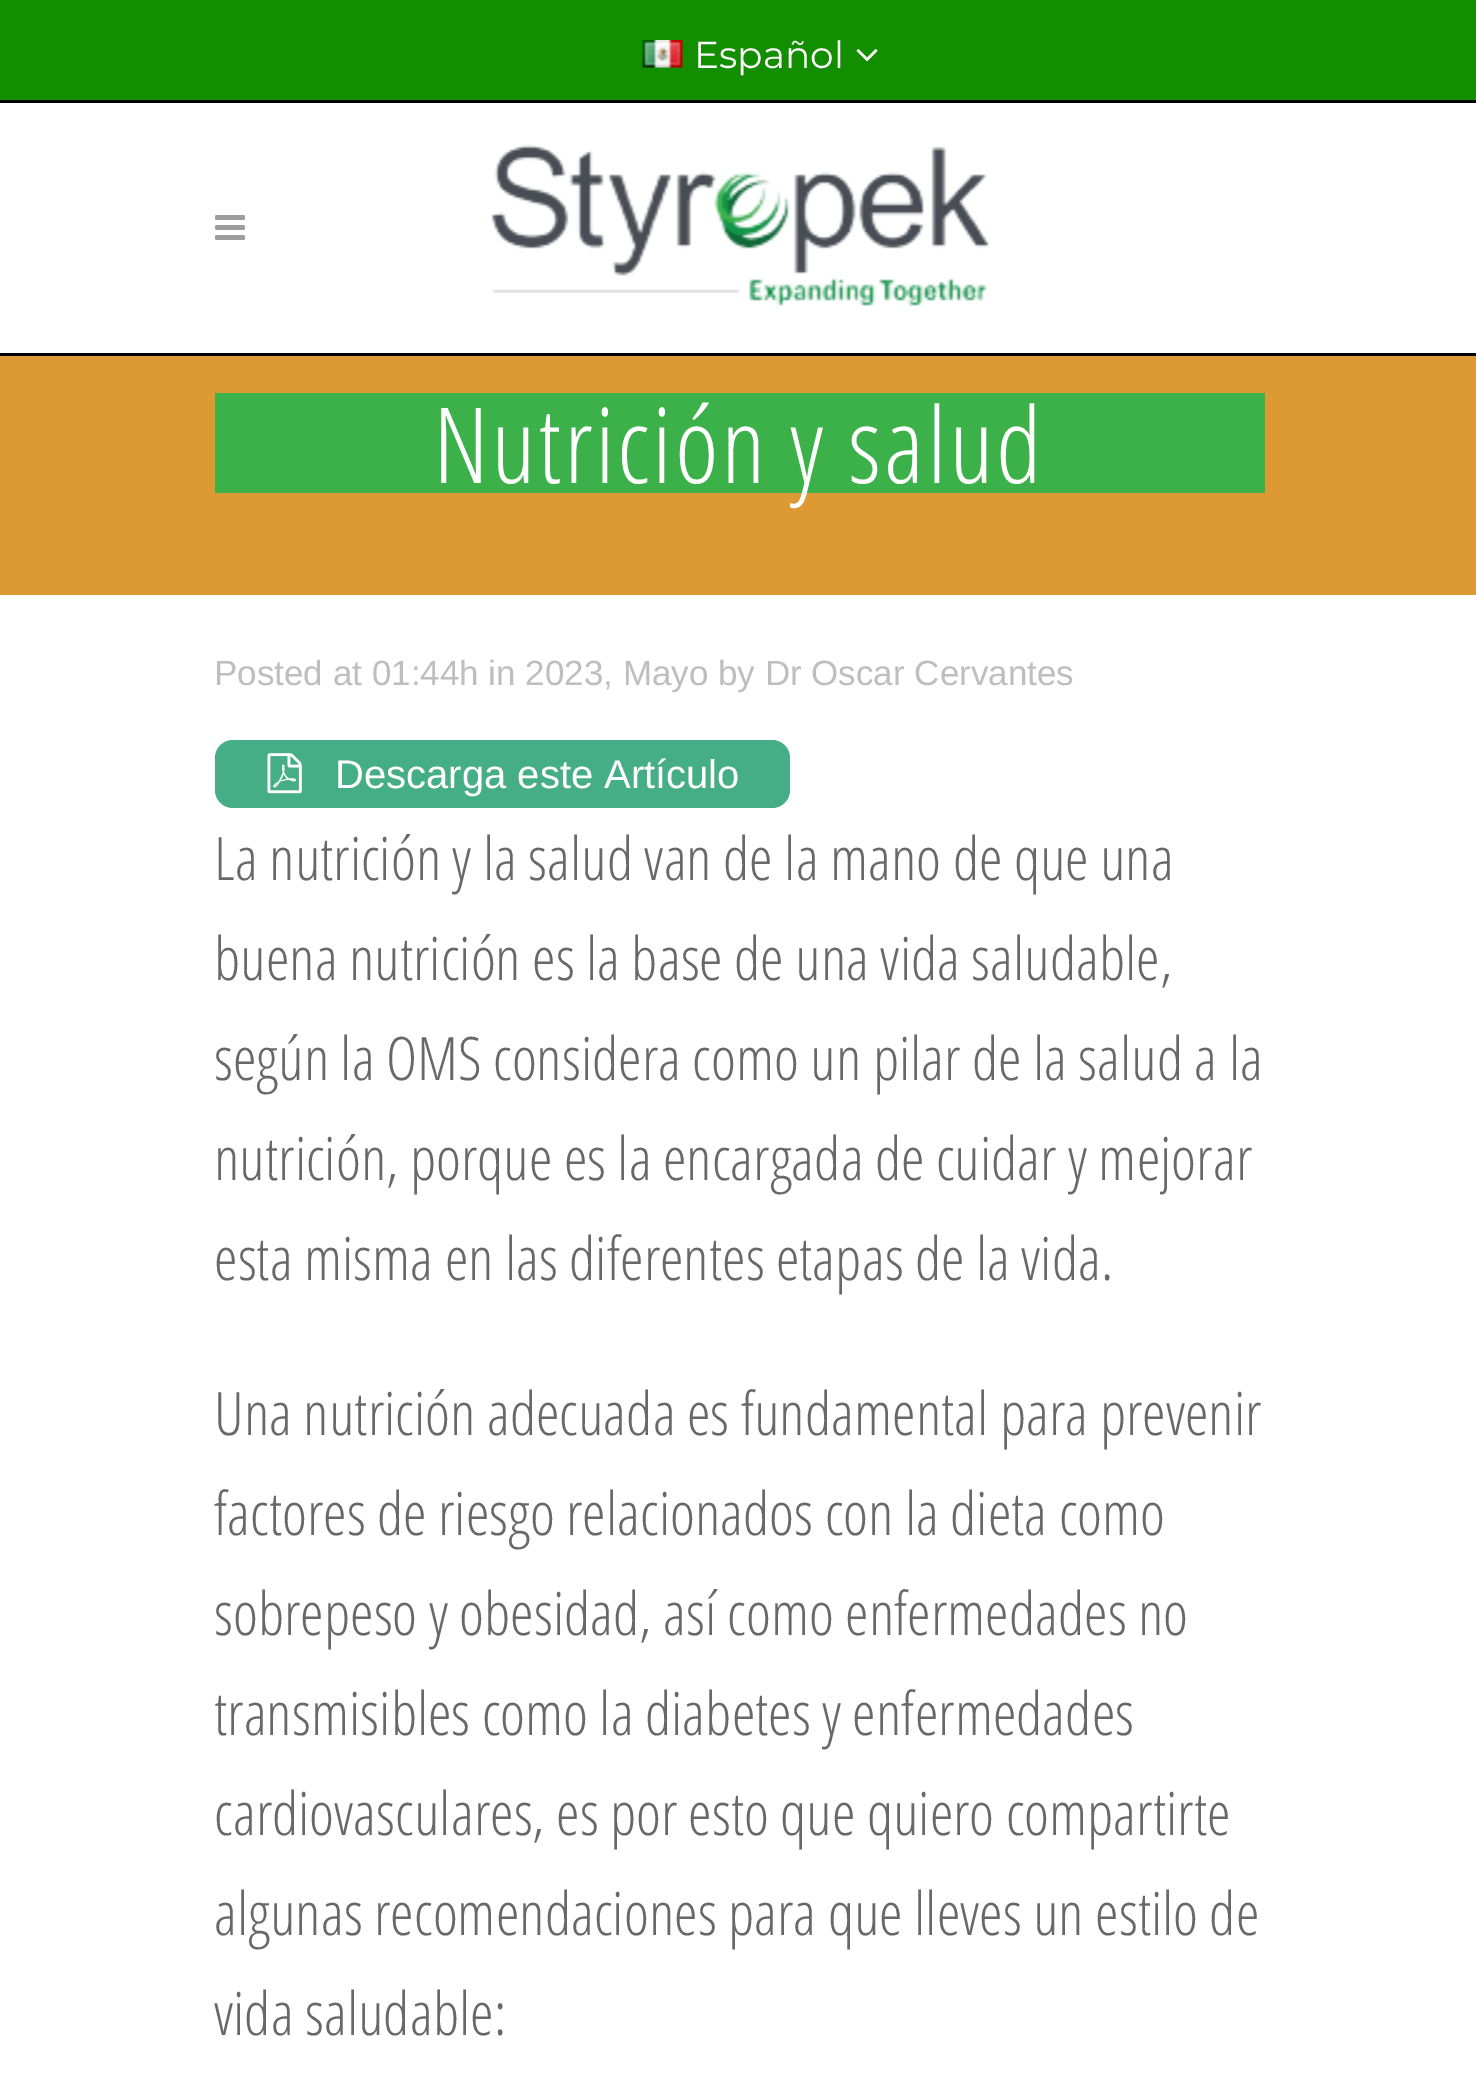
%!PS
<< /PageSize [1476 2092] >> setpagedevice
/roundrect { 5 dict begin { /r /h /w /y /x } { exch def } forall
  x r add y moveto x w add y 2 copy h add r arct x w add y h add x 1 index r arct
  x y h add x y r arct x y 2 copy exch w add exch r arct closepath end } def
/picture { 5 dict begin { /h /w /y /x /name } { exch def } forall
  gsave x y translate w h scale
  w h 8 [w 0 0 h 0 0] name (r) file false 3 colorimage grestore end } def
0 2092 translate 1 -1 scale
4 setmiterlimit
1 setgray
0 0 1476 2092 rectfill
0.075 0.557 0 setrgbcolor
0 0 1476 100 rectfill
0 setgray
0 100 1476 3 rectfill
(img1.rgb) 642 40 41 28 picture
/Montserrat-Regular [37.5 0 0 -37.5 0 0] selectfont
1 setgray
694 68 moveto (Español) show
(img2.rgb) 856 49 22 13 picture
0.008 setgray
0 353 1476 3 rectfill
(img3.rgb) 215 215 30 25 picture
(img4.rgb) 491 145 499 161 picture
0.867 0.6 0.2 setrgbcolor
0 356 1476 239 rectfill
0.235 0.694 0.29 setrgbcolor
215 393 1050 100 rectfill
/OpenSansCondensed-Light [105 0 0 -105 0 0] selectfont
1 setgray
433 483 moveto 2.5 0 (Nutrición y salud) ashow
/LiberationSans-Regular [35 0 0 -35 0 0] selectfont
0.745 setgray
214 685 moveto (Posted at 01:44h in 2023, Mayo by Dr Oscar Cervantes) show
0.271 0.682 0.525 setrgbcolor
215 740 575 68 18 roundrect fill
(img5.rgb) 267 753 35 41 picture
/LiberationSans-Regular [40 0 0 -40 0 0] selectfont
1 setgray
335 788 moveto (Descarga este Artículo) show
/OpenSansCondensed-Light [60 0 0 -60 0 0] selectfont
0.408 setgray
214 880 moveto (La nutrición y la salud van de la mano de que una) show
214 980 moveto (buena nutrición es la base de una vida saludable,) show
214 1080 moveto (según la OMS considera como un pilar de la salud a la) show
214 1180 moveto (nutrición, porque es la encargada de cuidar y mejorar) show
214 1280 moveto (esta misma en las diferentes etapas de la vida.) show
214 1435 moveto (Una nutrición adecuada es fundamental para prevenir) show
214 1535 moveto (factores de riesgo relacionados con la dieta como) show
214 1635 moveto (sobrepeso y obesidad, así como enfermedades no) show
214 1735 moveto (transmisibles como la diabetes y enfermedades) show
214 1835 moveto (cardiovasculares, es por esto que quiero compartirte) show
214 1935 moveto (algunas recomendaciones para que lleves un estilo de) show
214 2035 moveto (vida saludable:) show
showpage
